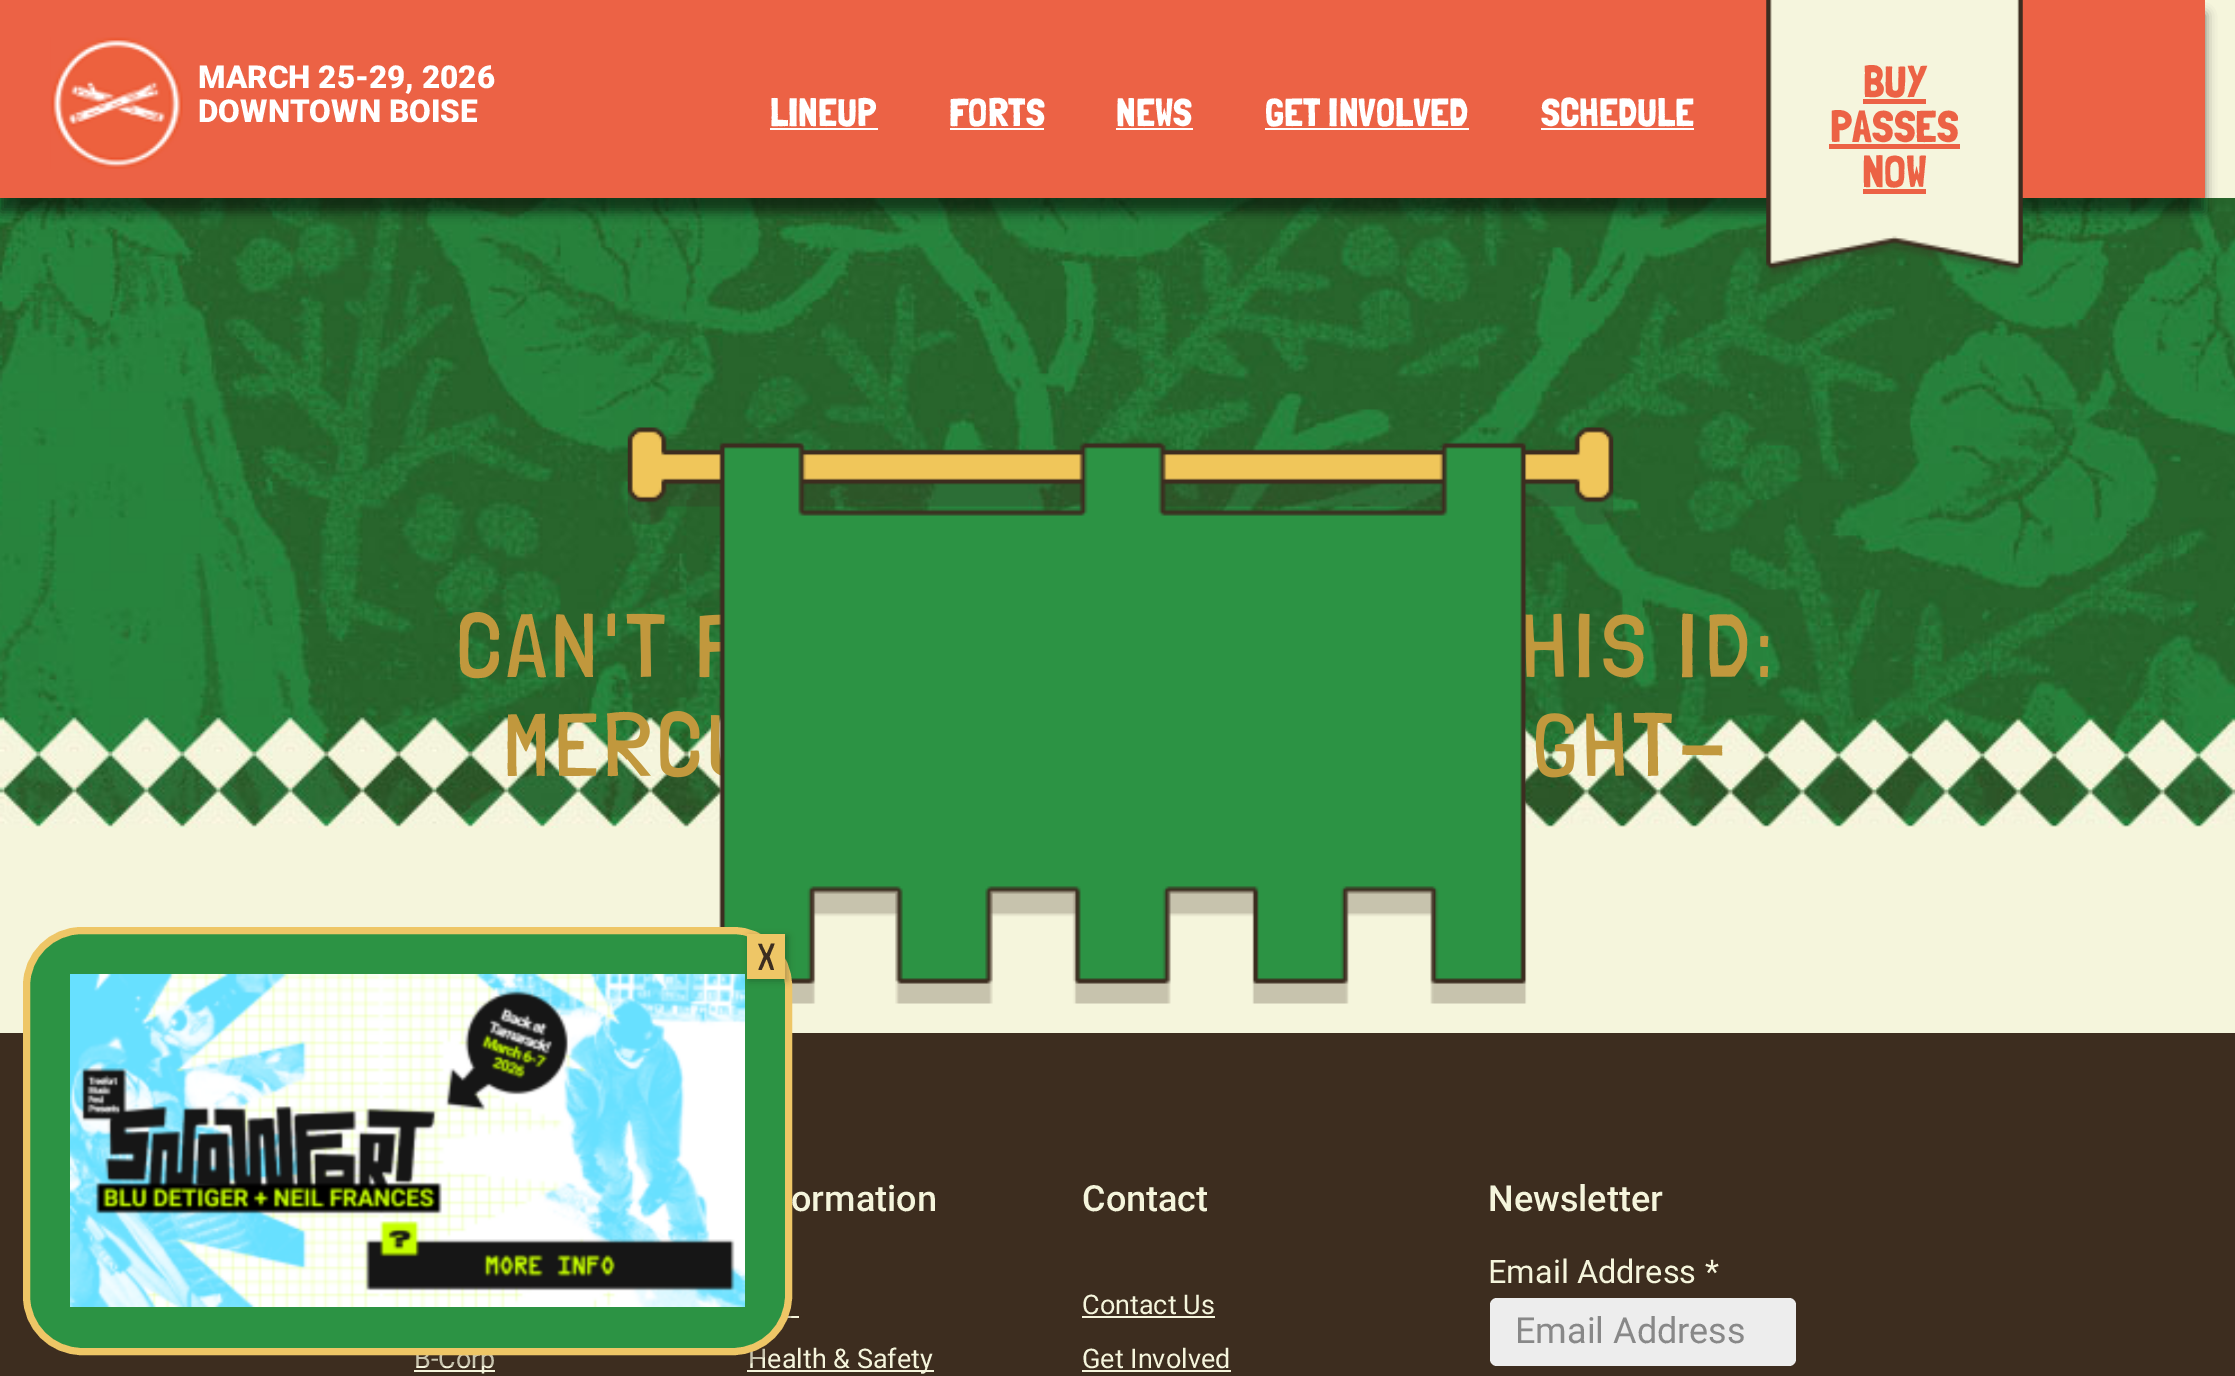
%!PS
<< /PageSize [2235 1376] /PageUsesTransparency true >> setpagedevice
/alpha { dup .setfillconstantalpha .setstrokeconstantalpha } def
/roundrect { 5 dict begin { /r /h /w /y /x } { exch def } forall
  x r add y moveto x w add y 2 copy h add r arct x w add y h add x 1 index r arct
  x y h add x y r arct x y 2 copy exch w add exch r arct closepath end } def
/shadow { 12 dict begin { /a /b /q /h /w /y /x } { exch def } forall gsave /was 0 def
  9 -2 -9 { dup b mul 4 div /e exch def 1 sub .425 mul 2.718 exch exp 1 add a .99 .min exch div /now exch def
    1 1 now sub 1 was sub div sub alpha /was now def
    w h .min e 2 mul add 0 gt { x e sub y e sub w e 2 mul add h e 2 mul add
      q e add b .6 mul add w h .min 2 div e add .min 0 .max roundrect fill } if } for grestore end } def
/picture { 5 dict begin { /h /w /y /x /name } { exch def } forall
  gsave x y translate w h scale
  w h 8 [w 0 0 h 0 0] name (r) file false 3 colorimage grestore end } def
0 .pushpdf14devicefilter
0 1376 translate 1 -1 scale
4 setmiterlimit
0.961 0.961 0.863 setrgbcolor
0 0 2235 1376 rectfill
(img3.rgb) 0 198 2235 630 picture
0 setgray
0 14 2205 198 0 5.5 0.55 shadow
0.925 0.384 0.271 setrgbcolor
0 0 2205 198 rectfill
(img1.rgb) 50 37 133 132 picture
/Roboto-Black [31.5 0 0 -31.5 0 0] selectfont
1 setgray
198 88 moveto (MARCH 25-29, 2026) show
198 122 moveto (DOWNTOWN BOISE) show
/LondrinaSolid-Regular [39.5 0 0 -39.5 0 0] selectfont
770 126 moveto (LINEUP) show
770 128 108 2 rectfill
949 126 moveto (FORTS) show
950 128 94 2 rectfill
1116 126 moveto (NEWS) show
1116 128 77 2 rectfill
1265 126 moveto (GET INVOLVED) show
1265 128 204 2 rectfill
1541 126 moveto (SCHEDULE) show
1541 128 153 2 rectfill
(img2.rgb) 1766 0 257 277 picture
/LondrinaSolid-Regular [45 0 0 -45 0 0] selectfont
0.925 0.384 0.271 setrgbcolor
1863 97 moveto (BUY) show
1863 99 63 5 rectfill
1830 142 moveto (PASSES) show
1829 144 131 5 rectfill
1862 187 moveto (NOW) show
1863 189 63 5 rectfill
/LondrinaSolid-Light [89.5 0 0 -89.5 0 0] selectfont
0.757 0.596 0.239 setrgbcolor
457 677 moveto 6.25 0 (CAN'T F) ashow
1522 677 moveto 6.25 0 (HIS ID:) ashow
504 776 moveto 6.25 0 (MERC) ashow
1533 776 moveto 6.25 0 (GHT-) ashow
(img4.rgb) 627 427 987 577 picture
0.239 0.176 0.122 setrgbcolor
0 1033 2235 343 rectfill
0.961 0.961 0.863 setrgbcolor
414 1370 81 2 rectfill
/Roboto-Regular [27 0 0 -27 0 0] selectfont
414 1368 moveto (B-Corp) show
787 1316 12 2 rectfill
747 1370 187 2 rectfill
748 1368 moveto (Health & Safety) show
0.25 alpha
0.235 0.176 0.125 setrgbcolor
newpath 23 1304 moveto 23 1307 lineto 23 1340 49 1366 82 1366 curveto 733 1366 lineto 766 1366 792 1340 792 1307 curveto 792 1296 lineto 792 1328 766 1354 734 1354 curveto 81 1354 lineto 51 1354 27 1332 23 1304 curveto closepath fill
1 alpha
0.173 0.576 0.267 setrgbcolor
26.5 930.5 762 421 55.5 roundrect gsave fill grestore
0.933 0.776 0.4 setrgbcolor
7 setlinewidth
stroke
(img5.rgb) 70 974 675 333 picture
0.008 setgray
749 936 39 45 0 3.5 0.23 shadow
0.933 0.776 0.4 setrgbcolor
747 934 38 45 rectfill
/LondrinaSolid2-Light [38 0 0 -38 0 0] selectfont
0.235 0.176 0.125 setrgbcolor
758 970 moveto (X) show
/Roboto-Medium [36 0 0 -36 0 0] selectfont
0.961 0.961 0.863 setrgbcolor
791 1211 moveto (ormation) show
1082 1211 moveto (Contact) show
/Roboto-Regular [27 0 0 -27 0 0] selectfont
1082 1314 moveto (Contact Us) show
1082 1316 133 2 rectfill
1082 1368 moveto (Get Involved) show
1082 1370 149 2 rectfill
/Roboto-Medium [36 0 0 -36 0 0] selectfont
1488 1211 moveto (Newsletter) show
/Roboto-Regular [32.5 0 0 -32.5 0 0] selectfont
1488 1283 moveto (Email Address) show
1705 1283 moveto (*) show
0.929 setgray
1490 1298 306 68 7 roundrect fill
/Roboto-Regular [36 0 0 -36 0 0] selectfont
0.533 setgray
1515 1343 moveto (Email Address) show
.poppdf14devicefilter showpage
